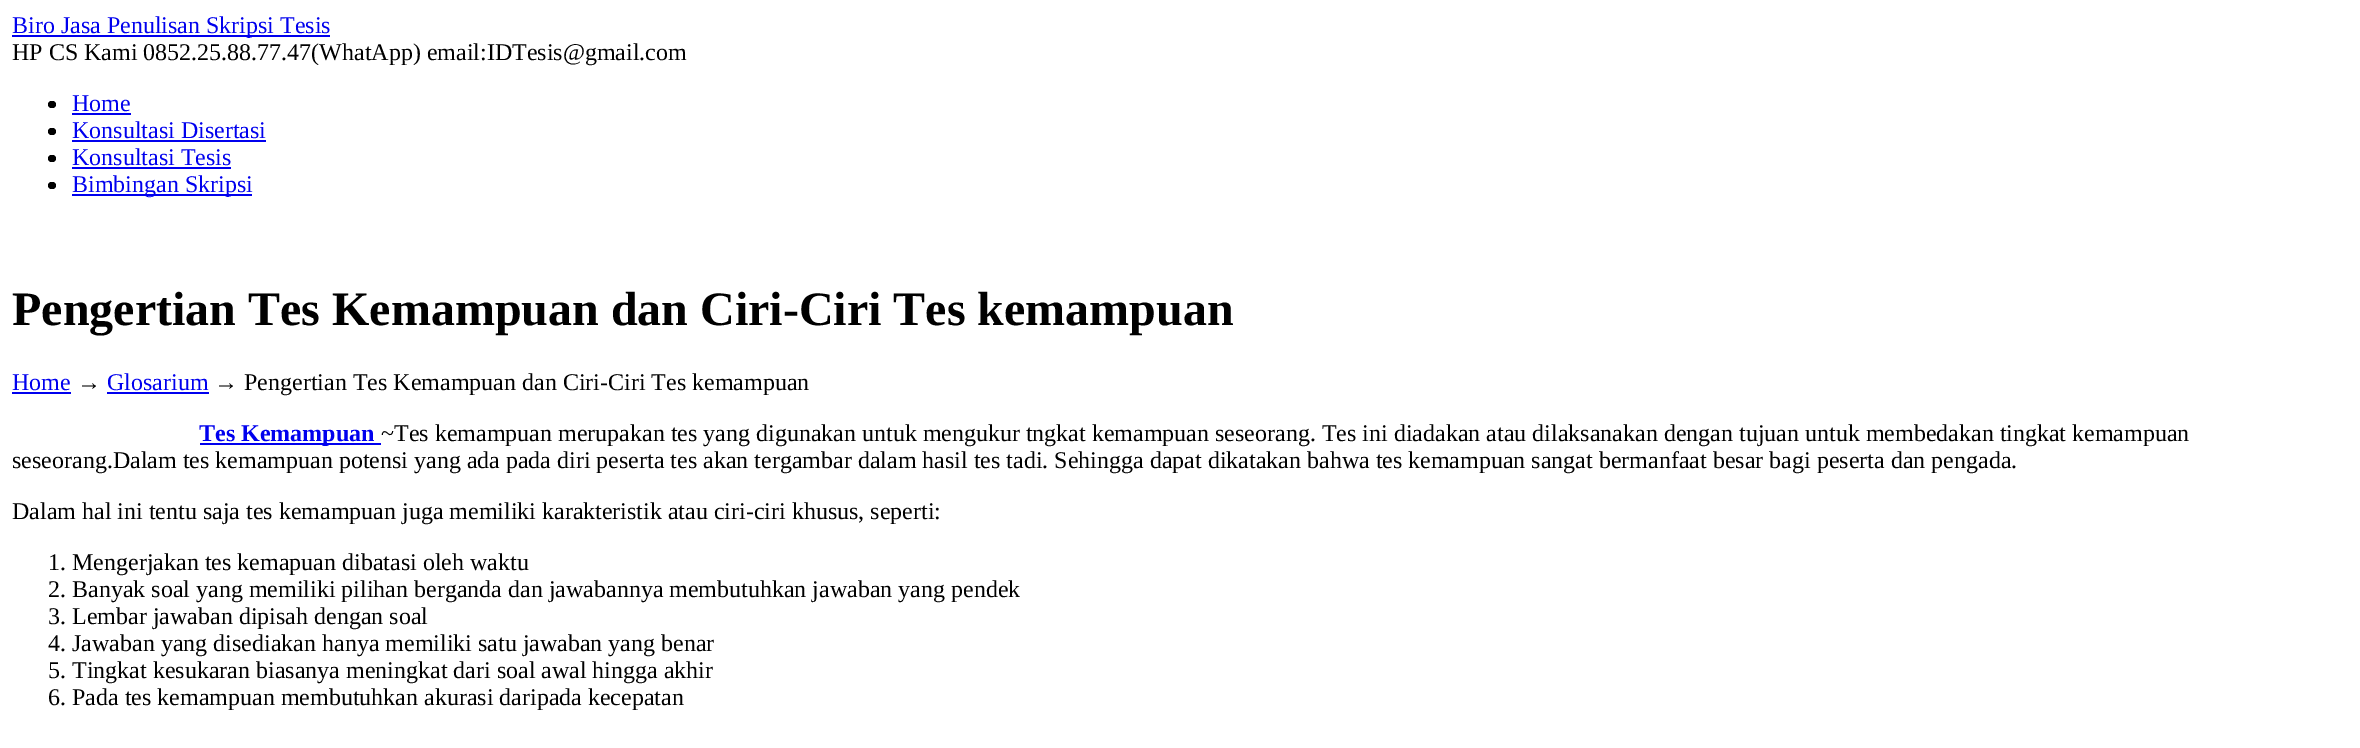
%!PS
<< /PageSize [2360 748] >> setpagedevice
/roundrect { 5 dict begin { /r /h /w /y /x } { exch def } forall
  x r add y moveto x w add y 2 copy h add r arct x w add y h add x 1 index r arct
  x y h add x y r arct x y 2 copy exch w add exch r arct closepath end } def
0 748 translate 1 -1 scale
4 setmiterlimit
1 setgray
0 0 2360 748 rectfill
0 0 0.933 setrgbcolor
12 35 318 2 rectfill
/LiberationSerif-Regular [24 0 0 -24 0 0] selectfont
12 33 moveto (Biro Jasa Penulisan Skripsi Tesis) show
0 setgray
12 60 moveto (HP CS Kami 0852.25.88.77.47\(WhatApp\) email:IDTesis@gmail.com) show
48 101 8 7 3.5 roundrect fill
0 0 0.933 setrgbcolor
72 111 moveto (Home) show
72 113 59 2 rectfill
0 setgray
48 128 8 7 3.5 roundrect fill
0 0 0.933 setrgbcolor
72 138 moveto (Konsultasi Disertasi) show
72 140 194 2 rectfill
0 setgray
48 155 8 7 3.5 roundrect fill
0 0 0.933 setrgbcolor
72 165 moveto (Konsultasi Tesis) show
72 167 159 2 rectfill
0 setgray
48 182 8 7 3.5 roundrect fill
0 0 0.933 setrgbcolor
72 194 180 2 rectfill
72 192 moveto (Bimbingan Skripsi) show
/LiberationSerif-Bold [48 0 0 -48 0 0] selectfont
0 setgray
12 325 moveto (Pengertian Tes Kemampuan dan Ciri-Ciri Tes kemampuan) show
/LiberationSerif-Regular [24 0 0 -24 0 0] selectfont
0 0 0.933 setrgbcolor
12 390 moveto (Home) show
12 392 59 2 rectfill
0 setgray
77 390 moveto (→) show
0 0 0.933 setrgbcolor
107 390 moveto (Glosarium) show
107 392 102 2 rectfill
0 setgray
214 390 moveto (→ Pengertian Tes Kemampuan dan Ciri-Ciri Tes kemampuan) show
0 0 0.933 setrgbcolor
200 443 181 2 rectfill
/LiberationSerif-Bold [24 0 0 -24 0 0] selectfont
199 441 moveto (Tes Kemampuan) show
/LiberationSerif-Regular [24 0 0 -24 0 0] selectfont
0 setgray
381 441 moveto (~Tes kemampuan merupakan tes yang digunakan untuk mengukur tngkat kemampuan seseorang. Tes ini diadakan atau dilaksanakan dengan tujuan untuk membedakan tingkat kemampuan) show
12 468 moveto (seseorang.Dalam tes kemampuan potensi yang ada pada diri peserta tes akan tergambar dalam hasil tes tadi. Sehingga dapat dikatakan bahwa tes kemampuan sangat bermanfaat besar bagi peserta dan pengada.) show
12 519 moveto (Dalam hal ini tentu saja tes kemampuan juga memiliki karakteristik atau ciri-ciri khusus, seperti:) show
48 570 moveto (1. Mengerjakan tes kemapuan dibatasi oleh waktu) show
48 597 moveto (2. Banyak soal yang memiliki pilihan berganda dan jawabannya membutuhkan jawaban yang pendek) show
48 624 moveto (3. Lembar jawaban dipisah dengan soal) show
48 651 moveto (4. Jawaban yang disediakan hanya memiliki satu jawaban yang benar) show
48 678 moveto (5. Tingkat kesukaran biasanya meningkat dari soal awal hingga akhir) show
48 705 moveto (6. Pada tes kemampuan membutuhkan akurasi daripada kecepatan) show
showpage
